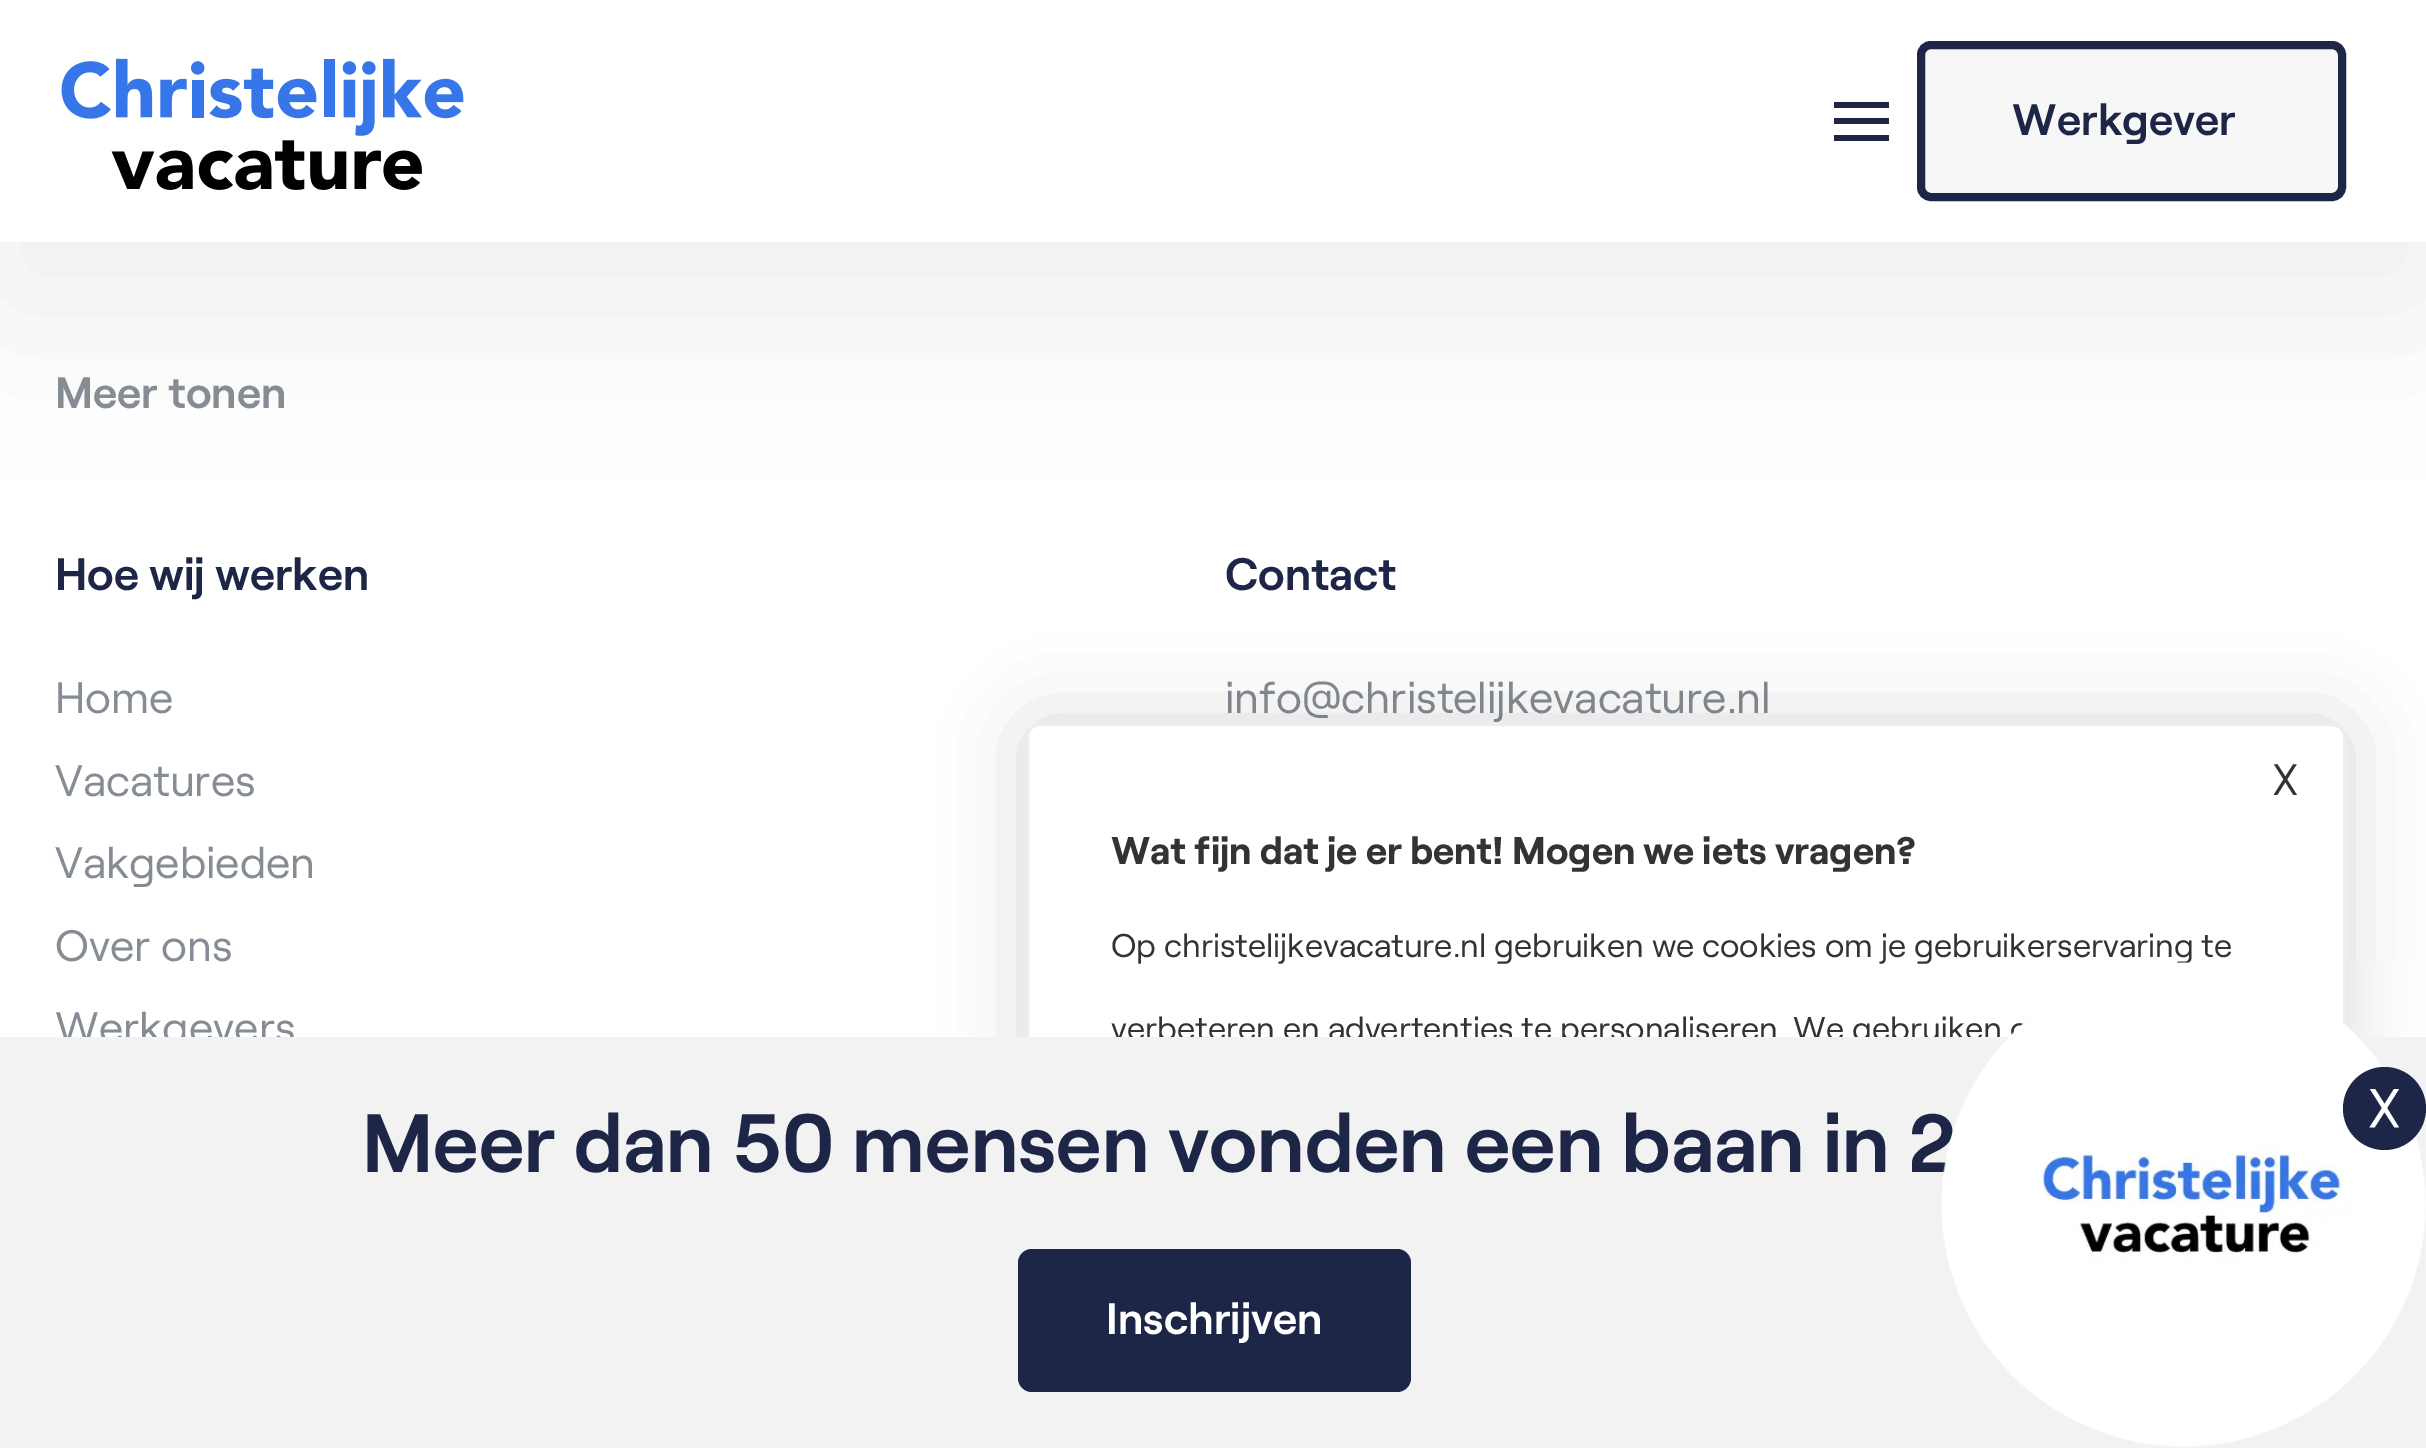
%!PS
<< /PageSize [2426 1448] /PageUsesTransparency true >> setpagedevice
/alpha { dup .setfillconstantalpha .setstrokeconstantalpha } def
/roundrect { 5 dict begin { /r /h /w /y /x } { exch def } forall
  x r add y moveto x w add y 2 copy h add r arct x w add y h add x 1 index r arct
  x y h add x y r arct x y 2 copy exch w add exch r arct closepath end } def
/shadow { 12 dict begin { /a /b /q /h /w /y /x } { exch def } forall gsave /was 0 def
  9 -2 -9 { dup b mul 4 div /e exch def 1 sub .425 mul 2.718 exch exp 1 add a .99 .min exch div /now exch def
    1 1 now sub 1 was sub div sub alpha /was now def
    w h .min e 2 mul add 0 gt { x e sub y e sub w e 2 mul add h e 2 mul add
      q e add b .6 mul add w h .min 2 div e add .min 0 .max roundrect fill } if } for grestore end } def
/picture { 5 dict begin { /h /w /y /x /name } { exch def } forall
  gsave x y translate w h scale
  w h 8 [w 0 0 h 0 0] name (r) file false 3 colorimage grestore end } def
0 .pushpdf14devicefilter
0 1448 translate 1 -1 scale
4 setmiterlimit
1 setgray
0 0 2426 1448 rectfill
0.114 0.149 0.278 setrgbcolor
0 -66 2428 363 0 82.5 0.08 shadow
1 setgray
0 0 2426 242 rectfill
(img1.rgb) 61 58 403 132 picture
0.114 0.149 0.278 setrgbcolor
1834 118 55 6 rectfill
1834 102 55 6 rectfill
1834 135 55 6 rectfill
0.969 setgray
1921 45 421 152 10 roundrect gsave fill grestore
0.114 0.149 0.278 setrgbcolor
8 setlinewidth
stroke
/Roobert-SemiBold [44 0 0 -44 0 0] selectfont
2012 135 moveto (Werkgever) show
0.522 0.549 0.58 setrgbcolor
55 408 moveto (Meer tonen) show
/Roobert-SemiBold [45.5 0 0 -45.5 0 0] selectfont
0.114 0.149 0.278 setrgbcolor
55 590 moveto (Hoe wij werken) show
/Roobert-Regular [44 0 0 -44 0 0] selectfont
0.522 0.549 0.58 setrgbcolor
55 713 moveto (Home) show
55 796 moveto (Vacatures) show
55 878 moveto (Vakgebieden) show
55 961 moveto (Over ons) show
55 1043 moveto (Werkgevers) show
/Roobert-SemiBold [45.5 0 0 -45.5 0 0] selectfont
0.114 0.149 0.278 setrgbcolor
1225 590 moveto (Contact) show
/Roobert-Regular [44 0 0 -44 0 0] selectfont
0.522 0.549 0.58 setrgbcolor
1225 713 moveto (info@christelijkevacature.nl) show
0 setgray
1026 723 1320 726 14 41 0.15 shadow
1 setgray
newpath 1040 724.5 moveto 2332 724.5 lineto 2339 724.5 2344.5 730 2344.5 737 curveto 2344.5 1447.5 lineto 1027.5 1447.5 lineto 1027.5 737 lineto 1027.5 730 1033 724.5 1040 724.5 curveto closepath gsave fill grestore
0.933 setgray
3 setlinewidth
stroke
0.2 setgray
2272 795 moveto (X) show
/Roobert-Bold [38.5 0 0 -38.5 0 0] selectfont
1111 864 moveto (Wat fijn dat je er bent! Mogen we iets vragen?) show
/Roobert-Regular [33 0 0 -33 0 0] selectfont
1111 957 moveto (Op christelijkevacature.nl gebruiken we cookies om je gebruikerservaring te) show
1111 1040 moveto (verbeteren en advertenties te personaliseren. We gebruiken o) show
0.949 setgray
0 1037 2426 411 rectfill
/Roobert-SemiBold [82.5 0 0 -82.5 0 0] selectfont
0.114 0.149 0.278 setrgbcolor
362 1172 moveto (Meer dan 50 mensen vonden een baan in 2) show
(img2.rgb) 1941 961 485 486 picture
newpath 2384.5 1108.5 41.5 0 360 arc closepath fill
1 setgray
newpath 2382 1108 moveto 2370 1089 lineto 2375 1089 lineto 2384.5 1104 lineto 2394 1089 lineto 2399 1089 lineto 2387 1108 lineto 2399 1127.5 lineto 2394.5 1127.5 lineto 2384.5 1112 lineto 2374.5 1127.5 lineto 2369.5 1127.5 lineto closepath fill
0.114 0.149 0.278 setrgbcolor
1018 1249 393 143 14 roundrect fill
/Roobert-SemiBold [44 0 0 -44 0 0] selectfont
1 setgray
1106 1334 moveto (Inschrijven) show
.poppdf14devicefilter showpage
